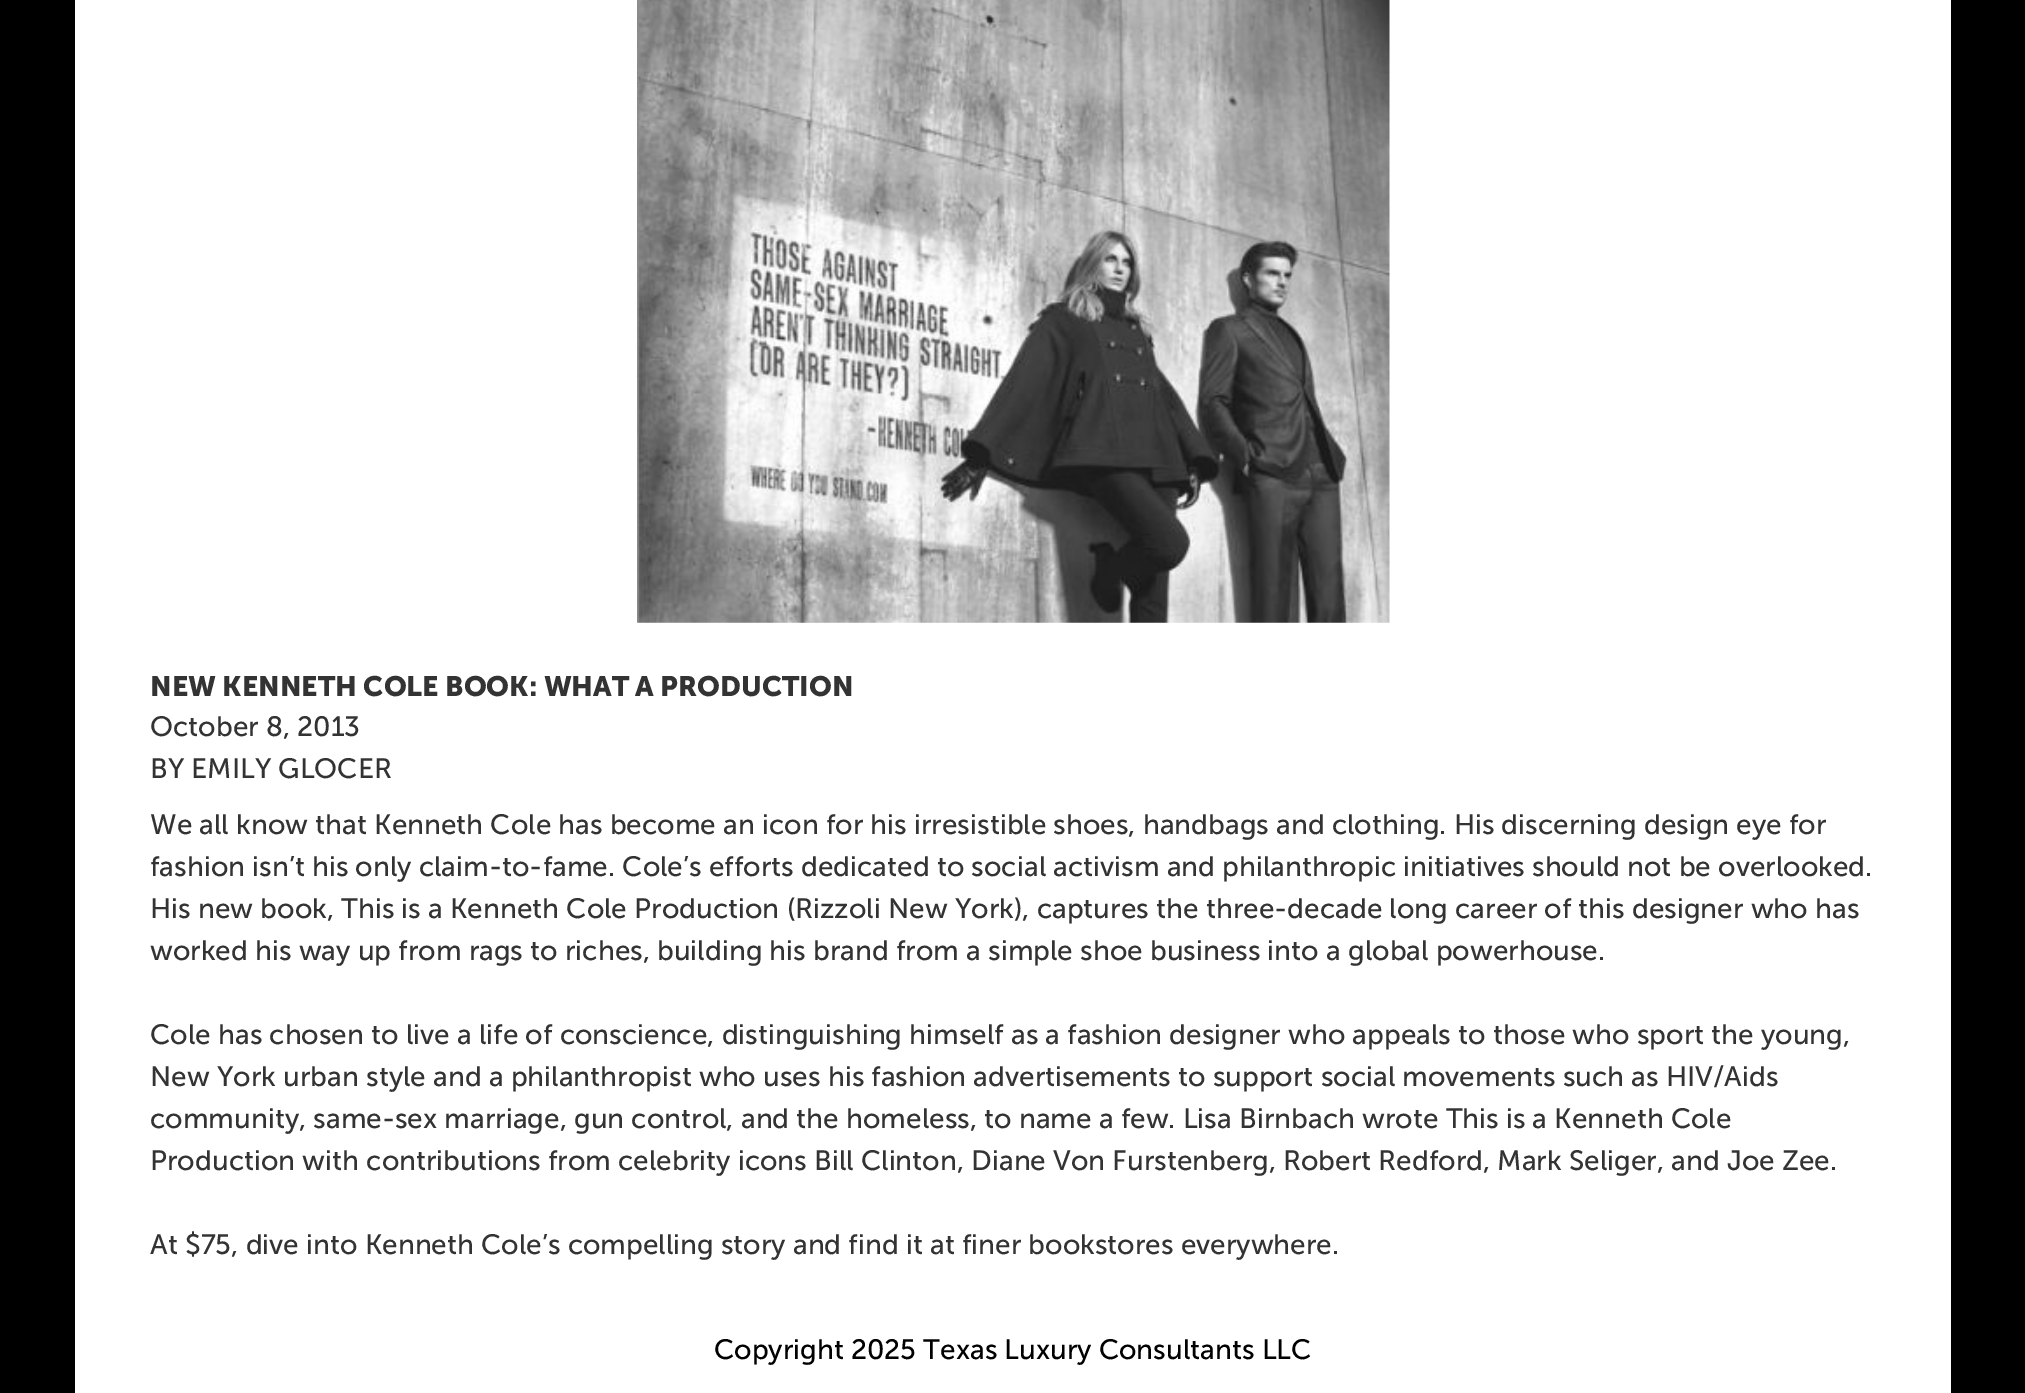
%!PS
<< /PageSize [2025 1393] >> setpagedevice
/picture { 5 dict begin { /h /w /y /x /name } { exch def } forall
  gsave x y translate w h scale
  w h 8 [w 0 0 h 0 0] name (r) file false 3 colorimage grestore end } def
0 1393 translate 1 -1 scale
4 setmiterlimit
0 setgray
0 0 2025 1393 rectfill
1 setgray
75 0 1876 1393 rectfill
(img1.rgb) 637 0 753 623 picture
/MuseoSans-Bold [28 0 0 -28 0 0] selectfont
0.2 setgray
150 696 moveto (NEW KENNETH COLE BOOK: WHAT A PRODUCTION) show
/MuseoSans-Regular [28 0 0 -28 0 0] selectfont
150 736 moveto (October 8, 2013) show
150 778 moveto (BY EMILY GLOCER) show
150 834 moveto (We all know that Kenneth Cole has become an icon for his irresistible shoes, handbags and clothing. His discerning design eye for) show
150 876 moveto (fashion isn’t his only claim-to-fame. Cole’s efforts dedicated to social activism and philanthropic initiatives should not be overlooked.) show
150 918 moveto (His new book, This is a Kenneth Cole Production \(Rizzoli New York\), captures the three-decade long career of this designer who has) show
150 960 moveto (worked his way up from rags to riches, building his brand from a simple shoe business into a global powerhouse.) show
150 1044 moveto (Cole has chosen to live a life of conscience, distinguishing himself as a fashion designer who appeals to those who sport the young,) show
150 1086 moveto (New York urban style and a philanthropist who uses his fashion advertisements to support social movements such as HIV/Aids) show
150 1128 moveto (community, same-sex marriage, gun control, and the homeless, to name a few. Lisa Birnbach wrote This is a Kenneth Cole) show
150 1170 moveto (Production with contributions from celebrity icons Bill Clinton, Diane Von Furstenberg, Robert Redford, Mark Seliger, and Joe Zee.) show
150 1254 moveto (At $75, dive into Kenneth Cole’s compelling story and find it at finer bookstores everywhere.) show
0 setgray
714 1359 moveto (Copyright 2025 Texas Luxury Consultants LLC) show
showpage
